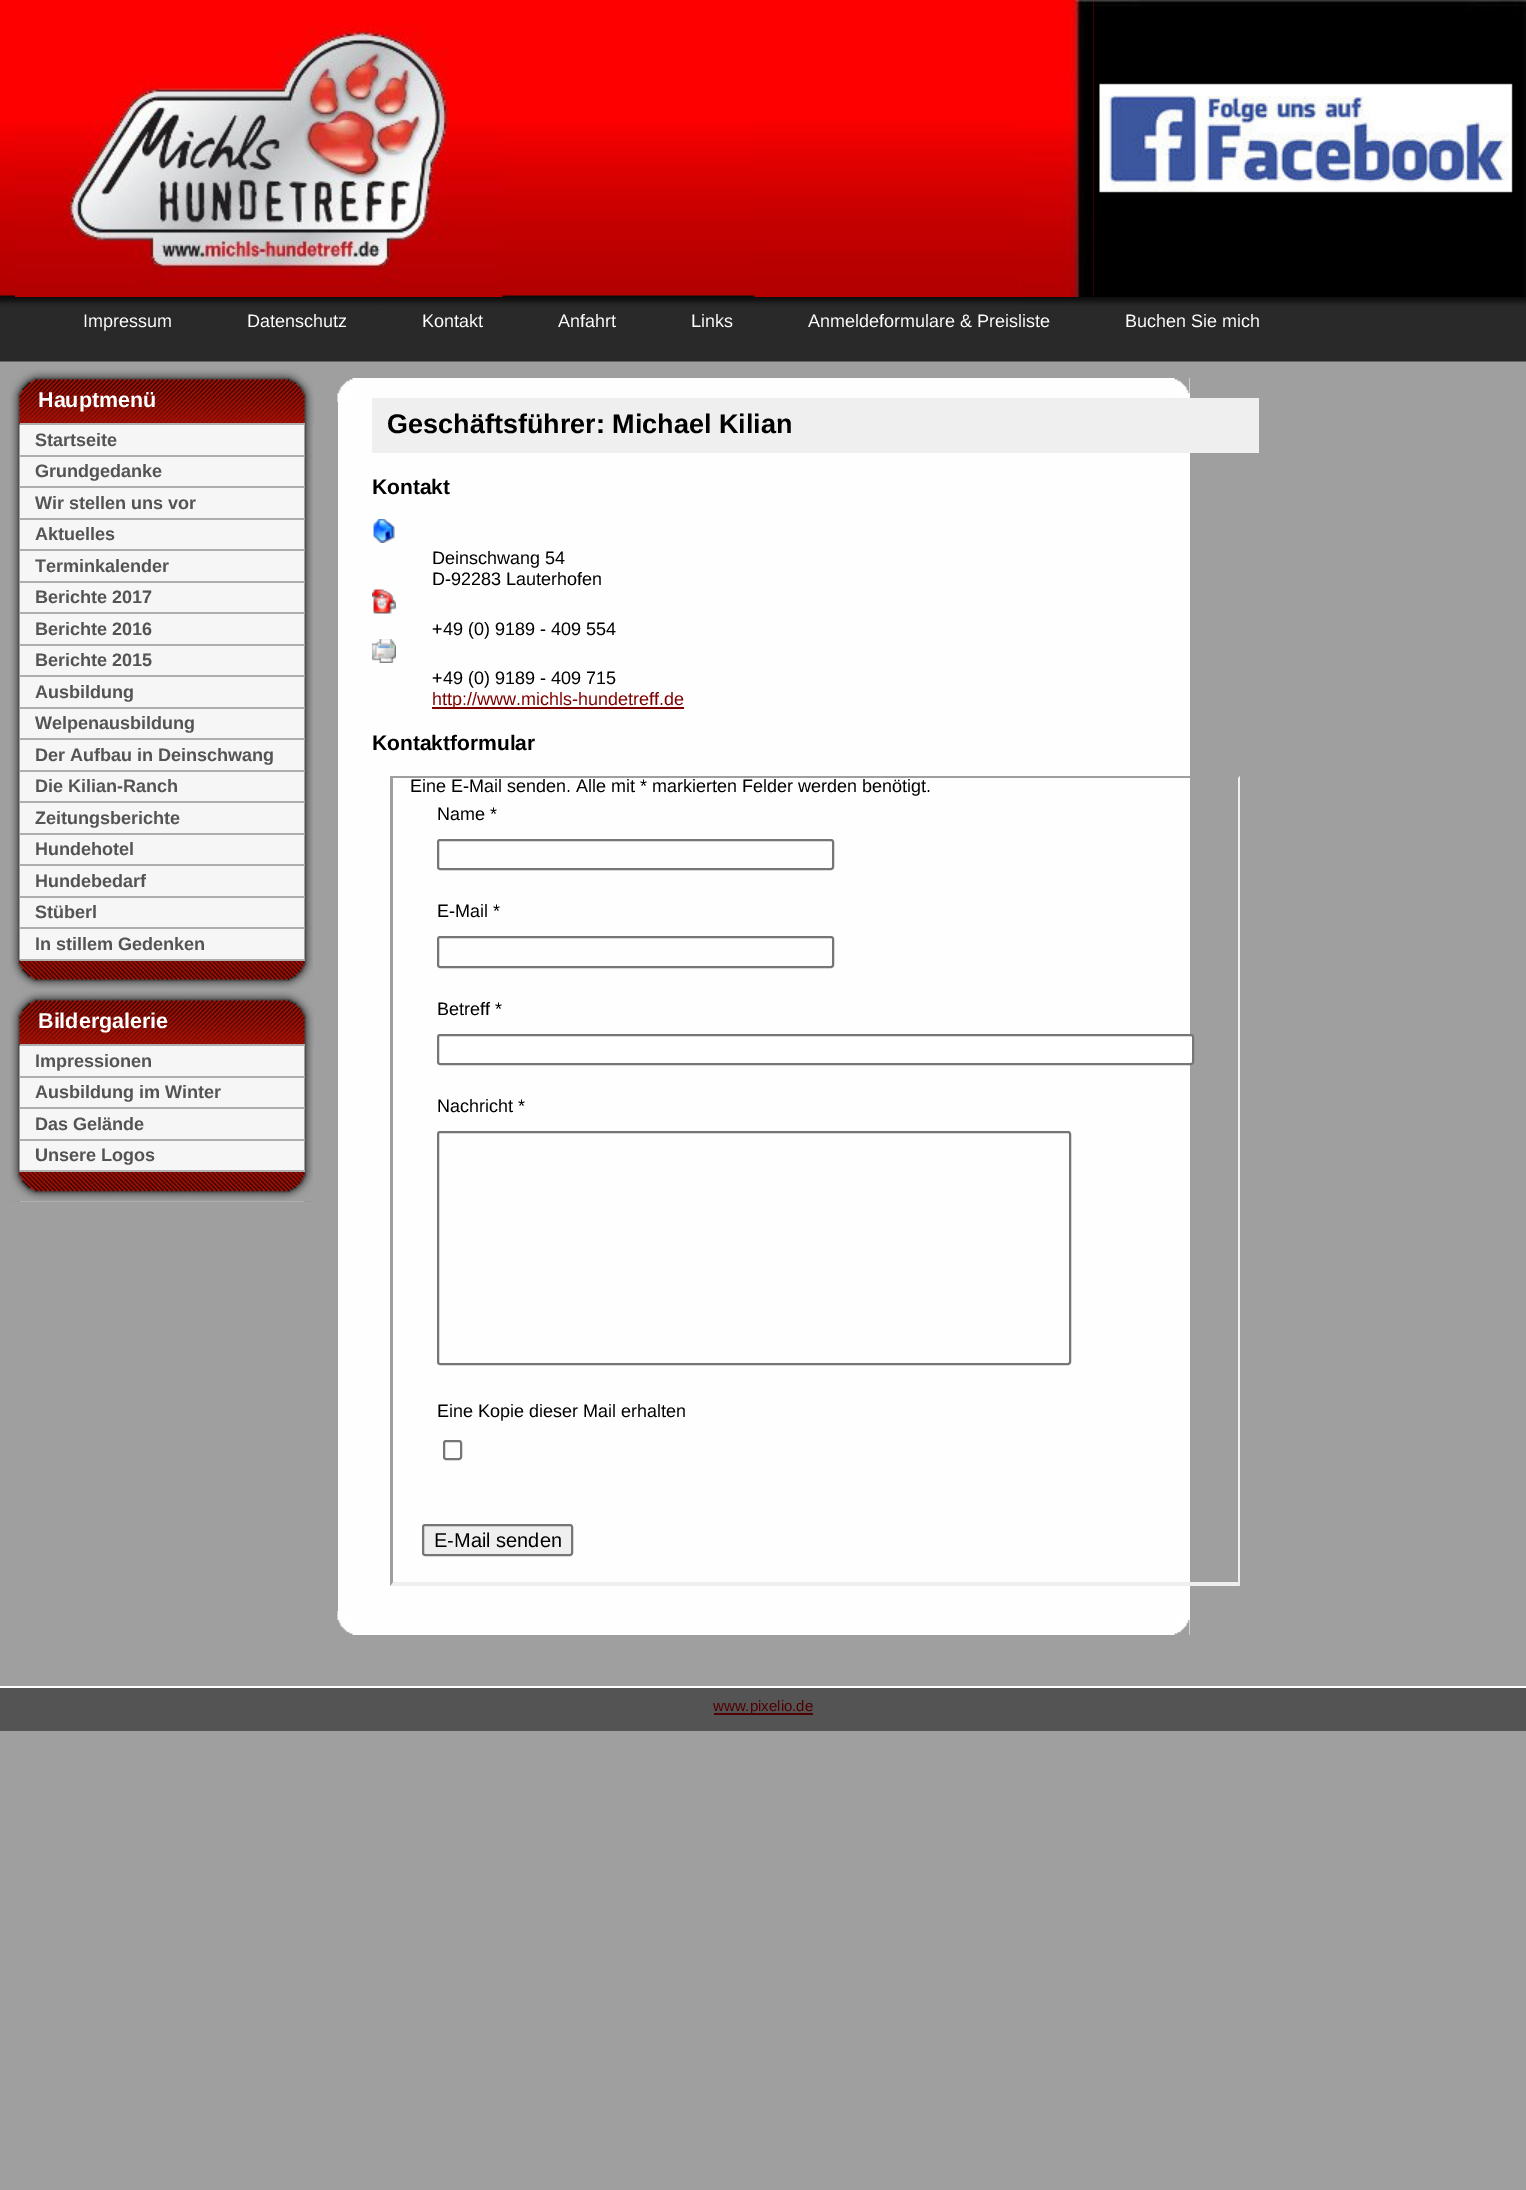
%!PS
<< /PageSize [1526 2190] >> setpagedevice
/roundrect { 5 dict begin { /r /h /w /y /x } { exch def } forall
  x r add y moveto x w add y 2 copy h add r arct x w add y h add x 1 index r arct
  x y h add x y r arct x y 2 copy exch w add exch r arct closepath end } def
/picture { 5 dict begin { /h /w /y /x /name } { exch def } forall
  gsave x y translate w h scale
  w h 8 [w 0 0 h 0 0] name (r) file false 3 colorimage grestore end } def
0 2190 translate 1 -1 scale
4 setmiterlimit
0.624 setgray
0 0 1526 2190 rectfill
(img1.rgb) 0 0 1094 296 picture
(img5.rgb) 0 295 1526 67 picture
(img2.rgb) 15 24 488 273 picture
(img3.rgb) 754 0 340 297 picture
(img4.rgb) 1093 0 433 297 picture
/LiberationSans-Regular [18 0 0 -18 0 0] selectfont
1 setgray
83 327 moveto (Impressum) show
247 327 moveto (Datenschutz) show
422 327 moveto (Kontakt) show
558 327 moveto (Anfahrt) show
691 327 moveto (Links) show
808 327 moveto (Anmeldeformulare & Preisliste) show
1125 327 moveto (Buchen Sie mich) show
(img6.rgb) 10 424 303 536 picture
(img7.rgb) 10 369 304 56 picture
(img8.rgb) 10 960 303 30 picture
/LiberationSans-Bold [21.5 0 0 -21.5 0 0] selectfont
38 407 moveto (Hauptmenü) show
0.682 setgray
20 423 285 2 rectfill
20 455 285 2 rectfill
/LiberationSans-Bold [18 0 0 -18 0 0] selectfont
0.329 setgray
35 446 moveto (Startseite) show
0.682 setgray
20 486 285 2 rectfill
0.329 setgray
35 477 moveto (Grundgedanke) show
0.682 setgray
20 518 285 2 rectfill
0.329 setgray
35 509 moveto (Wir stellen uns vor) show
0.682 setgray
20 549 285 2 rectfill
0.329 setgray
35 540 moveto (Aktuelles) show
0.682 setgray
20 581 285 2 rectfill
0.329 setgray
35 572 moveto (Terminkalender) show
0.682 setgray
20 612 285 2 rectfill
0.329 setgray
35 603 moveto (Berichte 2017) show
0.682 setgray
20 644 285 2 rectfill
0.329 setgray
35 635 moveto (Berichte 2016) show
0.682 setgray
20 675 285 2 rectfill
0.329 setgray
35 666 moveto (Berichte 2015) show
0.682 setgray
20 707 285 2 rectfill
0.329 setgray
35 698 moveto (Ausbildung) show
0.682 setgray
20 738 285 2 rectfill
0.329 setgray
35 729 moveto (Welpenausbildung) show
0.682 setgray
20 770 285 2 rectfill
0.329 setgray
35 761 moveto (Der Aufbau in Deinschwang) show
0.682 setgray
20 801 285 2 rectfill
0.329 setgray
35 792 moveto (Die Kilian-Ranch) show
0.682 setgray
20 833 285 2 rectfill
0.329 setgray
35 824 moveto (Zeitungsberichte) show
0.682 setgray
20 864 285 2 rectfill
0.329 setgray
35 855 moveto (Hundehotel) show
0.682 setgray
20 896 285 2 rectfill
0.329 setgray
35 887 moveto (Hundebedarf) show
0.682 setgray
20 927 285 2 rectfill
0.329 setgray
35 918 moveto (Stüberl) show
0.682 setgray
20 959 285 2 rectfill
0.329 setgray
35 950 moveto (In stillem Gedenken) show
(img9.rgb) 10 1045 303 157 picture
(img7.rgb) 10 990 304 56 picture
(img10.rgb) 10 1171 303 31 picture
/LiberationSans-Bold [21.5 0 0 -21.5 0 0] selectfont
1 setgray
38 1028 moveto (Bildergalerie) show
0.682 setgray
20 1044 285 2 rectfill
20 1076 285 2 rectfill
/LiberationSans-Bold [18 0 0 -18 0 0] selectfont
0.329 setgray
35 1067 moveto (Impressionen) show
0.682 setgray
20 1107 285 2 rectfill
0.329 setgray
35 1098 moveto (Ausbildung im Winter) show
0.682 setgray
20 1139 285 2 rectfill
0.329 setgray
35 1130 moveto (Das Gelände) show
0.682 setgray
20 1170 285 2 rectfill
0.329 setgray
35 1161 moveto (Unsere Logos) show
0.996 setgray
338 378 852 1257 rectfill
(img11.rgb) 337 1611 16 24 picture
(img12.rgb) 1174 1619 16 16 picture
(img13.rgb) 1174 378 16 16 picture
(img14.rgb) 337 378 16 24 picture
0.937 setgray
372 398 887 55 rectfill
/LiberationSans-Bold [27 0 0 -27 0 0] selectfont
0 setgray
387 433 moveto (Geschäftsführer: Michael Kilian) show
/LiberationSans-Bold [21 0 0 -21 0 0] selectfont
372 494 moveto (Kontakt) show
(img15.rgb) 373 519 22 24 picture
/LiberationSans-Regular [18 0 0 -18 0 0] selectfont
432 564 moveto (Deinschwang 54) show
432 585 moveto (D-92283 Lauterhofen) show
(img16.rgb) 372 589 24 25 picture
432 635 moveto (+49 \(0\) 9189 - 409 554) show
(img17.rgb) 372 639 24 24 picture
432 684 moveto (+49 \(0\) 9189 - 409 715) show
0.502 0 0 setrgbcolor
432 707 252 2 rectfill
432 705 moveto (http://www.michls-hundetreff.de) show
/LiberationSans-Bold [21 0 0 -21 0 0] selectfont
0 setgray
372 750 moveto (Kontaktformular) show
0.624 setgray
newpath 390 776 moveto 1240 776 lineto 1238 778 lineto 393 778 lineto closepath fill
0.937 setgray
newpath 1240 776 moveto 1240 1586 lineto 1238 1582 lineto 1238 778 lineto closepath fill
newpath 1240 1586 moveto 390 1586 lineto 393 1582 lineto 1238 1582 lineto closepath fill
0.624 setgray
newpath 390 1586 moveto 390 776 lineto 393 778 lineto 393 1582 lineto closepath fill
/LiberationSans-Regular [18 0 0 -18 0 0] selectfont
0 setgray
410 792 moveto (Eine E-Mail senden. Alle mit * markierten Felder werden benötigt.) show
437 820 moveto (Name *) show
0.463 setgray
2 setlinewidth
438 840 395 29 2 roundrect stroke
0 setgray
437 917 moveto (E-Mail *) show
0.463 setgray
438 937 395 30 2 roundrect stroke
0 setgray
437 1015 moveto (Betreff *) show
1 setgray
438 1035 755 29 2 roundrect gsave fill grestore
0.463 setgray
stroke
0 setgray
437 1112 moveto (Nachricht *) show
0.463 setgray
438 1132 632 232 2 roundrect stroke
0 setgray
437 1417 moveto (Eine Kopie dieser Mail erhalten) show
0.463 setgray
444 1441 17 18 2 roundrect stroke
0.937 setgray
423 1525 149 30 2 roundrect gsave fill grestore
0.463 setgray
stroke
/LiberationSans-Regular [20 0 0 -20 0 0] selectfont
0 setgray
434 1547 moveto (E-Mail senden) show
0.329 setgray
0 1688 1526 43 rectfill
1 setgray
0 1686 1526 2 rectfill
0.31 0 0 setrgbcolor
714 1713 99 2 rectfill
/LiberationSans-Regular [15 0 0 -15 0 0] selectfont
713 1711 moveto (www.pixelio.de) show
showpage
